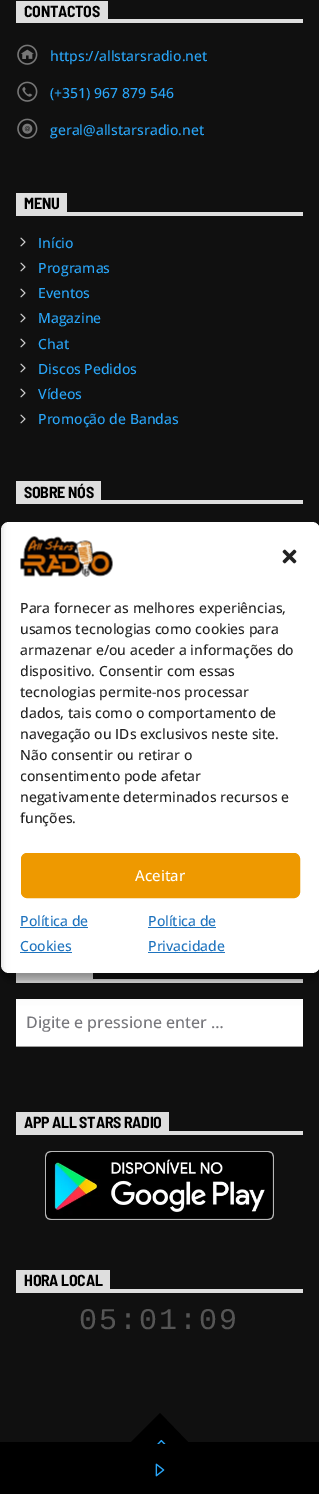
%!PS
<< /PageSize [319 1494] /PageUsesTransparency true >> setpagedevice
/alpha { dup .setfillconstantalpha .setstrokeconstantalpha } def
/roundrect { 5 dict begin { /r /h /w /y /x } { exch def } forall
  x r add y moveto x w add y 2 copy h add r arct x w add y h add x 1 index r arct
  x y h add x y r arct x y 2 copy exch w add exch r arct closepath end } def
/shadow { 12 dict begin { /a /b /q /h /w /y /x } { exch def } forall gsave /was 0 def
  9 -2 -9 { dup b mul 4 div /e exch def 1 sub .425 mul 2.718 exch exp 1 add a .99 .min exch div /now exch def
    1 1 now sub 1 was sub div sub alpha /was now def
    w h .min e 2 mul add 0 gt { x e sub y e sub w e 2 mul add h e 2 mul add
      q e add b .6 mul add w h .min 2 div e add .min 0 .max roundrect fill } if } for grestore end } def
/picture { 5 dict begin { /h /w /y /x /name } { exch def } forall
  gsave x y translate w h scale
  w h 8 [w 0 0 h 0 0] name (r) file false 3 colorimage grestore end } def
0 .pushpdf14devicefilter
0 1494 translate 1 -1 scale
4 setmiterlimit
0.063 setgray
0 0 319 1494 rectfill
0 setgray
0 1442 319 2 rectfill
0.871 setgray
16 979 287 4 rectfill
16 973 77 6 rectfill
0 setgray
1 528 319 451 8 3 0.23 shadow
0.871 setgray
16 500 287 4 rectfill
1 setgray
16 999 287 47 rectfill
0 setgray
1 532 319 451 8 10 0.19 shadow
1 setgray
1 522 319 451 8 roundrect fill
0 setgray
newpath 131 1442 moveto 160 1413 lineto 188 1442 lineto 160 1470 lineto closepath fill
0 1444 319 50 rectfill
-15 2 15 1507 0 5 0.12 shadow
-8 2 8 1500 0 2.5 0.16 shadow
0.871 setgray
16 19 287 4 rectfill
16 1 92 18 rectfill
/BarlowSemiCondensed-Bold [16 0 0 -16 0 0] selectfont
0 setgray
24 17 moveto -0.3 0 (CONTACTOS) ashow
(img1.rgb) 17 44 21 21 picture
/OpenSans-Medium [14 0 0 -14 0 0] selectfont
0.161 0.651 0.976 setrgbcolor
50 61 moveto (https://allstarsradio.net) show
(img2.rgb) 17 81 21 21 picture
50 98 moveto (\(+351\) 967 879 546) show
(img3.rgb) 17 118 21 21 picture
50 135 moveto (geral@allstarsradio.net) show
0.871 setgray
16 212 287 4 rectfill
16 193 51 19 rectfill
/BarlowSemiCondensed-Bold [16 0 0 -16 0 0] selectfont
0 setgray
24 209 moveto -0.3 0 (MENU) ashow
(img4.rgb) 20 237 6 10 picture
/OpenSans-Medium [14 0 0 -14 0 0] selectfont
0.161 0.651 0.976 setrgbcolor
38 248 moveto (Início) show
(img4.rgb) 20 262 6 10 picture
38 273 moveto (Programas) show
(img4.rgb) 20 288 6 10 picture
38 298 moveto (Eventos) show
(img4.rgb) 20 313 6 10 picture
38 323 moveto (Magazine) show
(img4.rgb) 20 338 6 10 picture
38 349 moveto (Chat) show
(img4.rgb) 20 363 6 10 picture
38 374 moveto (Discos Pedidos) show
(img4.rgb) 20 388 6 10 picture
38 399 moveto (Vídeos) show
(img4.rgb) 20 414 6 10 picture
38 424 moveto (Promoção de Bandas) show
0.871 setgray
16 481 85 19 rectfill
/BarlowSemiCondensed-Bold [16 0 0 -16 0 0] selectfont
0 setgray
24 498 moveto -0.3 0 (SOBRE NÓS) ashow
0.62 setgray
16 1046 287 1 rectfill
/OpenSans-Medium [16 0 0 -16 0 0] selectfont
0.467 0.467 0.486 setrgbcolor
26 1028 moveto (Digite e pressione enter …) show
0.871 setgray
16 1131 287 4 rectfill
16 1112 153 19 rectfill
/BarlowSemiCondensed-Bold [16 0 0 -16 0 0] selectfont
0 setgray
24 1128 moveto -0.3 0 (APP ALL STARS RADIO) ashow
(img5.rgb) 45 1151 229 69 picture
0.871 setgray
16 1289 287 4 rectfill
16 1270 94 19 rectfill
0 setgray
24 1286 moveto -0.3 0 (HORA LOCAL) ashow
/LiberationMono-Regular [30 0 0 -30 0 0] selectfont
0.333 setgray
79 1329 moveto 2 0 (05:01:09) ashow
(img6.rgb) 157 1439 9 5 picture
(img7.rgb) 20 536 93 41 picture
(img8.rgb) 282 549 15 15 picture
/OpenSans-Medium [14 0 0 -14 0 0] selectfont
0.133 setgray
20 613 moveto (Para fornecer as melhores experiências,) show
20 634 moveto (usamos tecnologias como cookies para) show
20 655 moveto (armazenar e/ou aceder a informações do) show
gsave
21 597 279 236 rectclip
20 676 moveto (dispositivo. Consentir com essas) show
grestore
20 697 moveto (tecnologias permite-nos processar) show
gsave
21 597 279 236 rectclip
20 718 moveto (dados, tais como o comportamento de) show
grestore
20 739 moveto (navegação ou IDs exclusivos neste site.) show
20 760 moveto (Não consentir ou retirar o) show
gsave
21 597 279 236 rectclip
20 781 moveto (consentimento pode afetar) show
grestore
20 802 moveto (negativamente determinados recursos e) show
20 823 moveto (funções.) show
0.933 0.6 0 setrgbcolor
21.5 853.5 278 44 5.5 roundrect gsave fill grestore
stroke
/OpenSans-Medium [15 0 0 -15 0 0] selectfont
1 setgray
135 881 moveto (Aceitar) show
/OpenSans-Medium [14 0 0 -14 0 0] selectfont
0.118 0.451 0.745 setrgbcolor
20 926 moveto (Política de) show
20 927 68 1 rectfill
20 951 moveto (Cookies) show
20 952 52 1 rectfill
148 926 moveto (Política de) show
148 927 68 1 rectfill
148 951 moveto (Privacidade) show
148 952 77 1 rectfill
(img9.rgb) 155 1463 10 14 picture
.poppdf14devicefilter showpage
